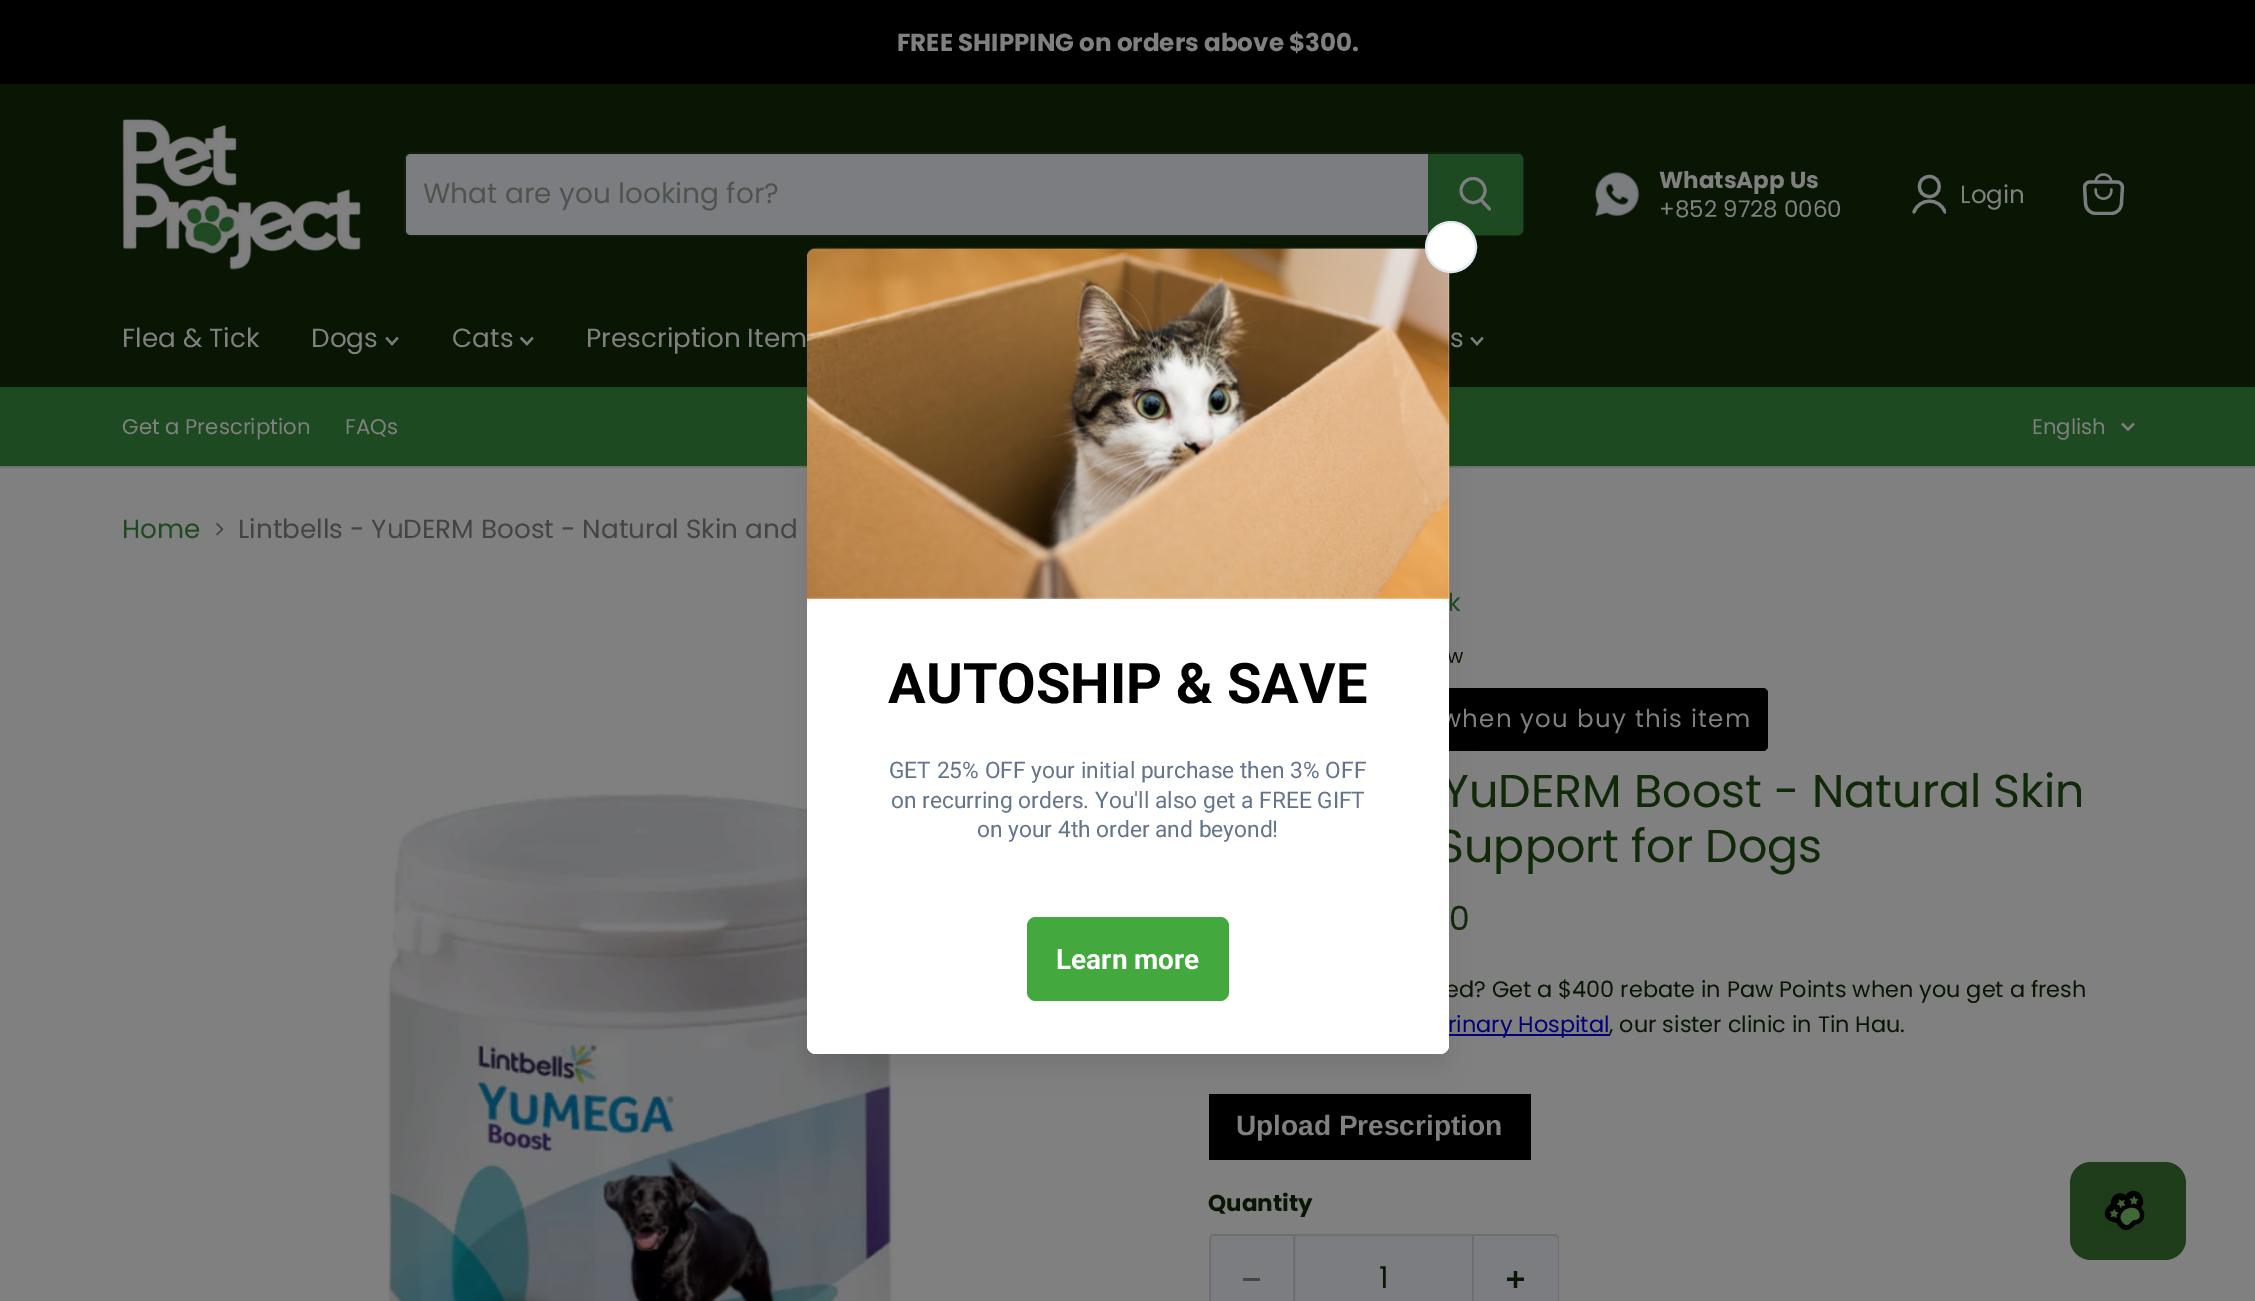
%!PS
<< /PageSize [2255 1301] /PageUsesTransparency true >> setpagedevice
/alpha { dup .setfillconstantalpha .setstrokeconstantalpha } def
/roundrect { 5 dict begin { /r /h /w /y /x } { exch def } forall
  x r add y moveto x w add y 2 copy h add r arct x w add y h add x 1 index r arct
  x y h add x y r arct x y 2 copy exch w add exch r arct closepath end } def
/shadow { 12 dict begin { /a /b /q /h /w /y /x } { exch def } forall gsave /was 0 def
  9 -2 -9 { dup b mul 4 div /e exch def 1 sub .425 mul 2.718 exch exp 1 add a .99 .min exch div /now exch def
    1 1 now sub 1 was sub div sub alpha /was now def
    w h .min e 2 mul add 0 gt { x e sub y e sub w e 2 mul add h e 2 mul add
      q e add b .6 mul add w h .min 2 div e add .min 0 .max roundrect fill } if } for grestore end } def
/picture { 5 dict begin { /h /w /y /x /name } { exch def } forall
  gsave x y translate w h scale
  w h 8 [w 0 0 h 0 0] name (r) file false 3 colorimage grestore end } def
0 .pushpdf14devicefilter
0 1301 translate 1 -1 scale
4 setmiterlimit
0.502 setgray
0 0 2255 1301 rectfill
0 setgray
0 0 2255 84 rectfill
/Poppins-Bold [24.6 0 0 -24.6 0 0] selectfont
0.502 setgray
897 51 moveto (FREE SHIPPING on orders above) show
1289 51 moveto ($300.) show
0.031 0.086 0.012 setrgbcolor
0 84 2255 303 rectfill
(img1.rgb) 122 119 240 151 picture
0.2 alpha
0.251 setgray
2 setlinewidth
405 153 1118 82 6 roundrect stroke
1 alpha
0.482 0.49 0.502 setrgbcolor
newpath 411 154 moveto 1428 154 lineto 1428 235 lineto 411 235 lineto 408 235 406 233 406 230 curveto 406 159 lineto 406 156 408 154 411 154 curveto closepath fill
/Poppins-Regular [28 0 0 -28 0 0] selectfont
0.302 0.329 0.306 setrgbcolor
423 203 moveto (What are you looking for?) show
0.118 0.29 0.129 setrgbcolor
newpath 1429 155 moveto 1518 155 lineto 1520 155 1522 157 1522 159 curveto 1522 230 lineto 1522 232 1520 234 1518 234 curveto 1429 234 lineto closepath gsave fill grestore
stroke
0.482 0.49 0.502 setrgbcolor
3 setlinewidth
1 setlinecap
newpath 1489.5 209 moveto 1481.5 200.5 lineto stroke
0 setlinecap
newpath 1473 190.5 12 0 360 arc closepath stroke
(img2.rgb) 1595 171 45 46 picture
/Poppins-Bold [23 0 0 -23 0 0] selectfont
0.502 setgray
1659 188 moveto (WhatsApp Us) show
/Poppins-Regular [23 0 0 -23 0 0] selectfont
1659 217 moveto (+852 9728 0060) show
0.482 0.49 0.502 setrgbcolor
3.2 setlinewidth
1 setlinecap
1 setlinejoin
newpath 1929.5 196.5 moveto 1942.5 196.5 1942.5 176.5 1929.5 176.5 curveto 1916 176.5 1916 196.5 1929.5 196.5 curveto closepath stroke
gsave
1911 173 35 42 rectclip
newpath 1945 212 moveto 1939.5 197.5 1919.5 197.5 1914 212 curveto stroke
grestore
/Poppins-Regular [24.6 0 0 -24.6 0 0] selectfont
0.502 setgray
1960 203 moveto (Login) show
(img3.rgb) 2083 173 42 42 picture
/Poppins-Regular [26.25 0 0 -26.25 0 0] selectfont
122 347 moveto (Flea & Tick) show
311 347 moveto (Dogs) show
0.482 0.49 0.502 setrgbcolor
2.2 setlinewidth
2 setlinecap
0 setlinejoin
newpath 392 344 moveto 397 338.5 lineto 392 344 moveto 387 338.5 lineto stroke
0.502 setgray
452 347 moveto (Cats) show
0.482 0.49 0.502 setrgbcolor
newpath 527 344 moveto 532 338.5 lineto 527 344 moveto 521.5 338.5 lineto stroke
0.502 setgray
586 347 moveto (Prescription Item) show
1450 347 moveto (s) show
0.482 0.49 0.502 setrgbcolor
newpath 1477 344 moveto 1482 338.5 lineto 1477 344 moveto 1472 338.5 lineto stroke
0.118 0.29 0.129 setrgbcolor
0 387 2255 79 rectfill
0.435 setgray
0 466 2255 2 rectfill
/Poppins-Regular [21.25 0 0 -21.25 0 0] selectfont
0.502 setgray
122 434 moveto (Get a Prescription) show
345 434 moveto (FAQs) show
2032 434 moveto (English) show
0.482 0.49 0.502 setrgbcolor
newpath 2128 429.5 moveto 2133 424.5 lineto 2128 429.5 moveto 2123 424.5 lineto stroke
/Poppins-Regular [26.25 0 0 -26.25 0 0] selectfont
0.118 0.29 0.129 setrgbcolor
122 538 moveto (Home) show
(img4.rgb) 216 522 8 14 picture
0.263 0.271 0.259 setrgbcolor
238 538 moveto (Lintbells - YuDERM Boost - Natural Skin and) show
(img5.rgb) 387 793 507 508 picture
/Poppins-Regular [24.6 0 0 -24.6 0 0] selectfont
0.118 0.29 0.129 setrgbcolor
1448 611 moveto (k) show
/Poppins-Regular [20 0 0 -20 0 0] selectfont
0.031 0.086 0.012 setrgbcolor
1447 663 moveto (w) show
0 setgray
1209 688 559 63 5 roundrect fill
/Poppins-Regular [24.5 0 0 -24.5 0 0] selectfont
0.502 setgray
1441 727 moveto 1.25 0 (when you buy this item) ashow
/Poppins-Regular [46 0 0 -46 0 0] selectfont
0.063 0.161 0.031 setrgbcolor
1442 807 moveto (YuDERM Boost - Natural Skin) show
1437 862 moveto (Support for Dogs) show
/Poppins-Regular [33 0 0 -33 0 0] selectfont
1449 930 moveto (0) show
/Poppins-Regular [22.4 0 0 -22.4 0 0] selectfont
0.031 0.086 0.012 setrgbcolor
1445 997 moveto (ed? Get a $400 rebate in Paw Points when you get a fresh) show
0 0 0.467 setrgbcolor
1449 1034 161 2 rectfill
1448 1032 moveto (rinary Hospital) show
0.031 0.086 0.012 setrgbcolor
1609 1032 moveto (, our sister clinic in Tin Hau.) show
0 setgray
1209 1094 322 66 rectfill
/LiberationSans-Bold [28 0 0 -28 0 0] selectfont
0.502 setgray
1236 1135 moveto (Upload Prescription) show
/Poppins-Bold [23 0 0 -23 0 0] selectfont
0.031 0.086 0.012 setrgbcolor
1208 1211 moveto (Quantity) show
0.482 0.49 0.502 setrgbcolor
newpath 1214 1234 moveto 1293 1234 lineto 1293 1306 lineto 1214 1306 lineto 1211 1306 1209 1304 1209 1301 curveto 1209 1239 lineto 1209 1236 1211 1234 1214 1234 curveto closepath fill
0.435 setgray
newpath 1214 1234 moveto 1293 1234 lineto 1293 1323 lineto 1214 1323 lineto 1212 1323 1209 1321 1209 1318 curveto 1209 1239 lineto 1209 1236 1212 1234 1214 1234 curveto closepath 1214 1236 moveto 1293 1236 lineto 1293 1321 lineto 1214 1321 lineto 1213 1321 1211 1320 1211 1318 curveto 1211 1239 lineto 1211 1237 1213 1236 1214 1236 curveto closepath eofill
0.259 0.286 0.259 setrgbcolor
1243 1278 17 3 rectfill
0.482 0.49 0.502 setrgbcolor
newpath 1294 1235 moveto 1473 1235 lineto 1473 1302 lineto 1294 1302 lineto closepath gsave fill grestore
0.435 setgray
2 setlinewidth
0 setlinecap
stroke
/Poppins-Regular [30 0 0 -30 0 0] selectfont
0.031 0.086 0.012 setrgbcolor
1379 1288 moveto (1) show
0.482 0.49 0.502 setrgbcolor
newpath 1474 1234 moveto 1554 1234 lineto 1557 1234 1559 1236 1559 1239 curveto 1559 1301 lineto 1559 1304 1557 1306 1554 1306 curveto 1474 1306 lineto closepath fill
0.435 setgray
newpath 1474 1234 moveto 1554 1234 lineto 1557 1234 1559 1236 1559 1239 curveto 1559 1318 lineto 1559 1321 1557 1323 1554 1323 curveto 1474 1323 lineto closepath 1474 1236 moveto 1554 1236 lineto 1556 1236 1558 1237 1558 1239 curveto 1558 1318 lineto 1558 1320 1556 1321 1554 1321 curveto 1474 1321 lineto closepath eofill
(img6.rgb) 1507 1271 17 17 picture
0 setgray
812 271 632 795 4 13 0.1 shadow
1 setgray
807 249 642 805 9 roundrect fill
(img7.rgb) 807 247 643 352 picture
newpath 1451 247 25 0 360 arc closepath gsave fill grestore
0.886 0.91 0.941 setrgbcolor
stroke
gsave
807 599 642 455 rectclip
0 setgray
810 609 636 448 5 5 0.05 shadow
812 604 632 444 4 17.5 0.12 shadow
grestore
1 setgray
807 599 642 455 9 roundrect fill
/Roboto-Bold [56 0 0 -56 0 0] selectfont
0 setgray
888 703 moveto (AUTOSHIP & SAVE) show
/Roboto-Regular [22.75 0 0 -22.75 0 0] selectfont
0.392 0.455 0.545 setrgbcolor
889 778 moveto (GET 25% OFF your initial purchase then 3% OFF) show
891 808 moveto (on recurring orders. You'll also get a FREE GIFT) show
977 837 moveto (on your 4th order and beyond!) show
0.263 0.663 0.247 setrgbcolor
1027 917 202 84 9 roundrect fill
/Roboto-Bold [28 0 0 -28 0 0] selectfont
1 setgray
1056 969 moveto (Learn more) show
0.122 0.235 0.106 setrgbcolor
2070 1162 116 98 21 roundrect fill
(img8.rgb) 2104 1190 41 41 picture
.poppdf14devicefilter showpage
